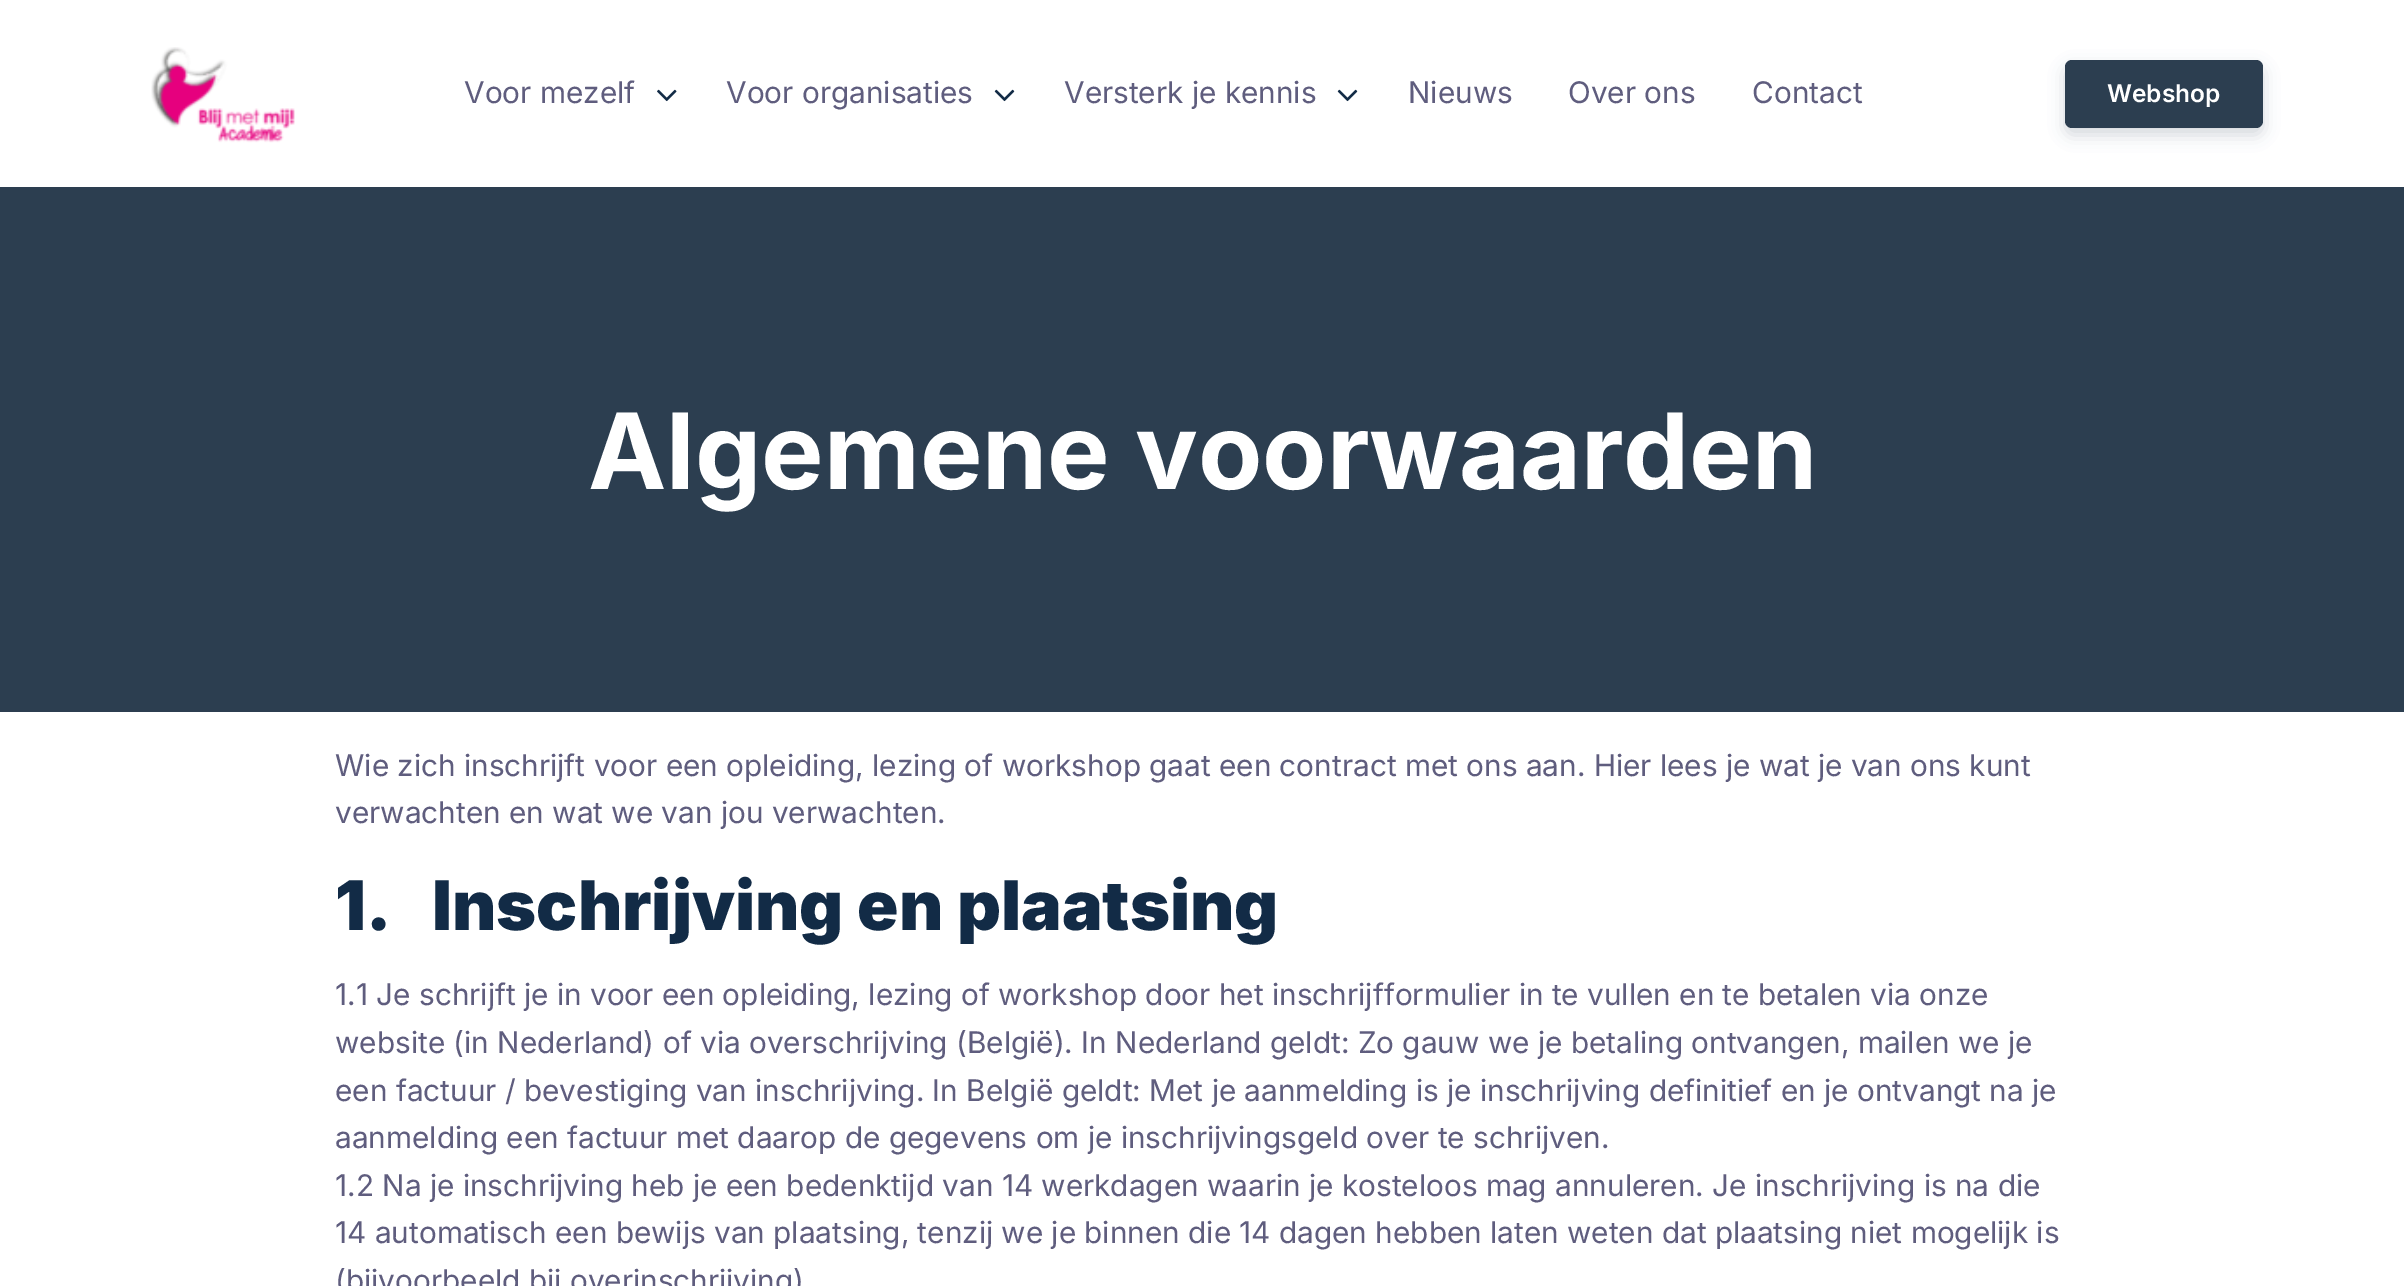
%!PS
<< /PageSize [2404 1286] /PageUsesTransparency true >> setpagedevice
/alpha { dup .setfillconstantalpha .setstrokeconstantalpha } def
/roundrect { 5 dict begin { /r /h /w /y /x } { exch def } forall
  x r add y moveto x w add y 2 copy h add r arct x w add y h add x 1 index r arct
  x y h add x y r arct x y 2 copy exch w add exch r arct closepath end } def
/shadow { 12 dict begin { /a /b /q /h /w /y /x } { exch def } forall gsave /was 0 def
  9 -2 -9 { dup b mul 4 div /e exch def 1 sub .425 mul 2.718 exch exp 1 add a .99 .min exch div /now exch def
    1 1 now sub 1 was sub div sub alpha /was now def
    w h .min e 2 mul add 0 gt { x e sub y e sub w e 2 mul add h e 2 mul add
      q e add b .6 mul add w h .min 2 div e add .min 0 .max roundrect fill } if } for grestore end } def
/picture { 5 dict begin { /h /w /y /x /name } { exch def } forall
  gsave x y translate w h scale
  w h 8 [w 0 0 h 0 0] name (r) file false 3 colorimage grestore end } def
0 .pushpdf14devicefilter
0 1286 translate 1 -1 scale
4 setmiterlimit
1 setgray
0 0 2404 1286 rectfill
(img1.rgb) 151 47 144 96 picture
/Inter-Regular [29.75 0 0 -29.75 0 0] selectfont
0.373 0.365 0.494 setrgbcolor
464 103 moveto (Voor mezelf) show
(img2.rgb) 657 89 20 13 picture
726 103 moveto (Voor organisaties) show
(img3.rgb) 994 89 21 13 picture
1064 103 moveto (Versterk je kennis) show
(img3.rgb) 1337 89 21 13 picture
1408 103 moveto (Nieuws) show
1568 103 moveto (Over ons) show
1752 103 moveto (Contact) show
0.173 0.243 0.314 setrgbcolor
2065 67 198 68 7 8 0.2 shadow
2065 60 198 68 7 roundrect fill
/Inter-SemiBold [24.5 0 0 -24.5 0 0] selectfont
1 setgray
2107 102 moveto (Webshop) show
0.173 0.243 0.314 setrgbcolor
0 187 2404 525 rectfill
/Inter-Bold [105 0 0 -105 0 0] selectfont
1 setgray
588 489 moveto (Algemene voorwaarden) show
/Inter-Regular [29.75 0 0 -29.75 0 0] selectfont
0.373 0.365 0.494 setrgbcolor
335 776 moveto (Wie zich inschrijft voor een opleiding, lezing of workshop gaat een contract met ons aan. Hier lees je wat je van ons kunt) show
335 823 moveto (verwachten en wat we van jou verwachten.) show
/Inter-Black [68.25 0 0 -68.25 0 0] selectfont
0.071 0.169 0.275 setrgbcolor
335 930 moveto (1.   Inschrijving en plaatsing) show
/Inter-Regular [29.75 0 0 -29.75 0 0] selectfont
0.373 0.365 0.494 setrgbcolor
335 1005 moveto (1.1 Je schrijft je in voor een opleiding, lezing of workshop door het inschrijfformulier in te vullen en te betalen via onze) show
335 1053 moveto (website \(in Nederland\) of via overschrijving \(België\). In Nederland geldt: Zo gauw we je betaling ontvangen, mailen we je) show
335 1101 moveto (een factuur / bevestiging van inschrijving. In België geldt: Met je aanmelding is je inschrijving definitief en je ontvangt na je) show
335 1148 moveto (aanmelding een factuur met daarop de gegevens om je inschrijvingsgeld over te schrijven.) show
335 1196 moveto (1.2 Na je inschrijving heb je een bedenktijd van 14 werkdagen waarin je kosteloos mag annuleren. Je inschrijving is na die) show
335 1243 moveto (14 automatisch een bewijs van plaatsing, tenzij we je binnen die 14 dagen hebben laten weten dat plaatsing niet mogelijk is) show
335 1291 moveto (\(bijvoorbeeld bij overinschrijving\)) show
.poppdf14devicefilter showpage
